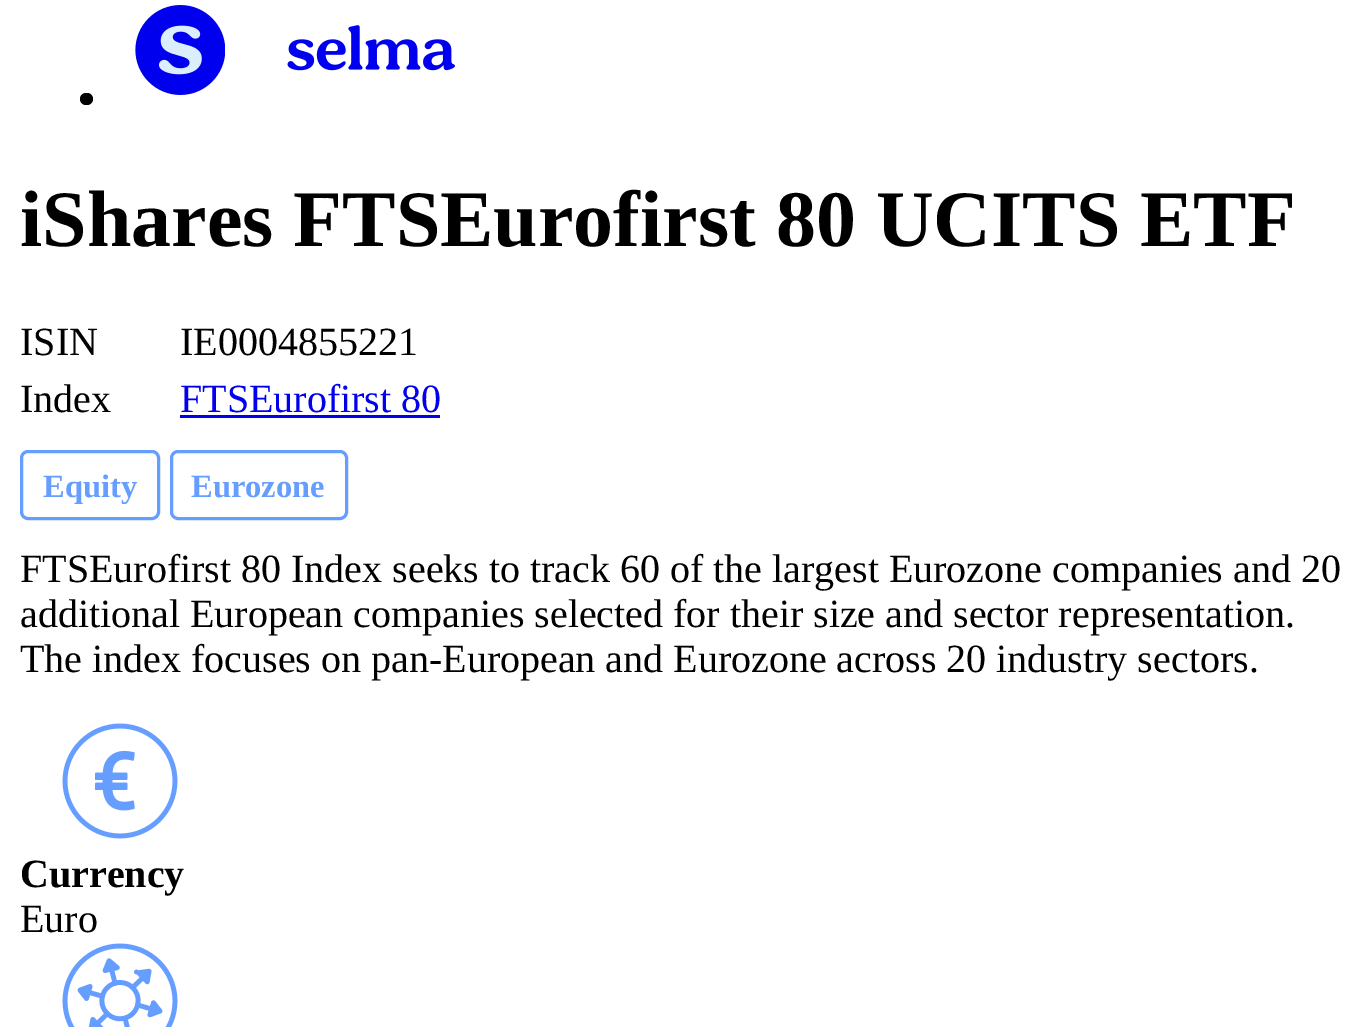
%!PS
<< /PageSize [1364 1027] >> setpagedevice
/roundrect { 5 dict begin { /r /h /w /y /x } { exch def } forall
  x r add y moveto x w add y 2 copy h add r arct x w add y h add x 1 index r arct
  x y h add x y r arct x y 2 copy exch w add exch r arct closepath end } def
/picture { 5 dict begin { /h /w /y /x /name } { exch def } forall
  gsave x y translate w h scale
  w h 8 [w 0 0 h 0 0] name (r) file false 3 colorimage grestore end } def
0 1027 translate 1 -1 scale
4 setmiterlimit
1 setgray
0 0 1364 1027 rectfill
(img1.rgb) 135 5 90 90 picture
(img2.rgb) 287 25 168 46 picture
0 setgray
80 93 13 12 6 roundrect fill
/LiberationSerif-Bold [80 0 0 -80 0 0] selectfont
20 246 moveto (iShares FTSEurofirst 80 UCITS ETF) show
/LiberationSerif-Regular [40 0 0 -40 0 0] selectfont
20 355 moveto (ISIN) show
180 355 moveto (IE0004855221) show
20 412 moveto (Index) show
0 0 0.933 setrgbcolor
180 412 moveto (FTSEurofirst 80) show
180 415 260 3 rectfill
0.4 0.62 1 setrgbcolor
3 setlinewidth
21.5 451.5 137 67 6.5 roundrect stroke
/LiberationSerif-Bold [32.5 0 0 -32.5 0 0] selectfont
43 497 moveto (Equity) show
171.5 451.5 175 67 6.5 roundrect stroke
191 497 moveto (Eurozone) show
/LiberationSerif-Regular [40 0 0 -40 0 0] selectfont
0 setgray
20 582 moveto (FTSEurofirst 80 Index seeks to track 60 of the largest Eurozone companies and 20) show
20 627 moveto (additional European companies selected for their size and sector representation.) show
20 672 moveto (The index focuses on pan-European and Eurozone across 20 industry sectors.) show
(img3.rgb) 62 723 116 116 picture
/LiberationSerif-Bold [40 0 0 -40 0 0] selectfont
20 887 moveto (Currency) show
/LiberationSerif-Regular [40 0 0 -40 0 0] selectfont
20 932 moveto (Euro) show
(img4.rgb) 62 943 116 84 picture
showpage
